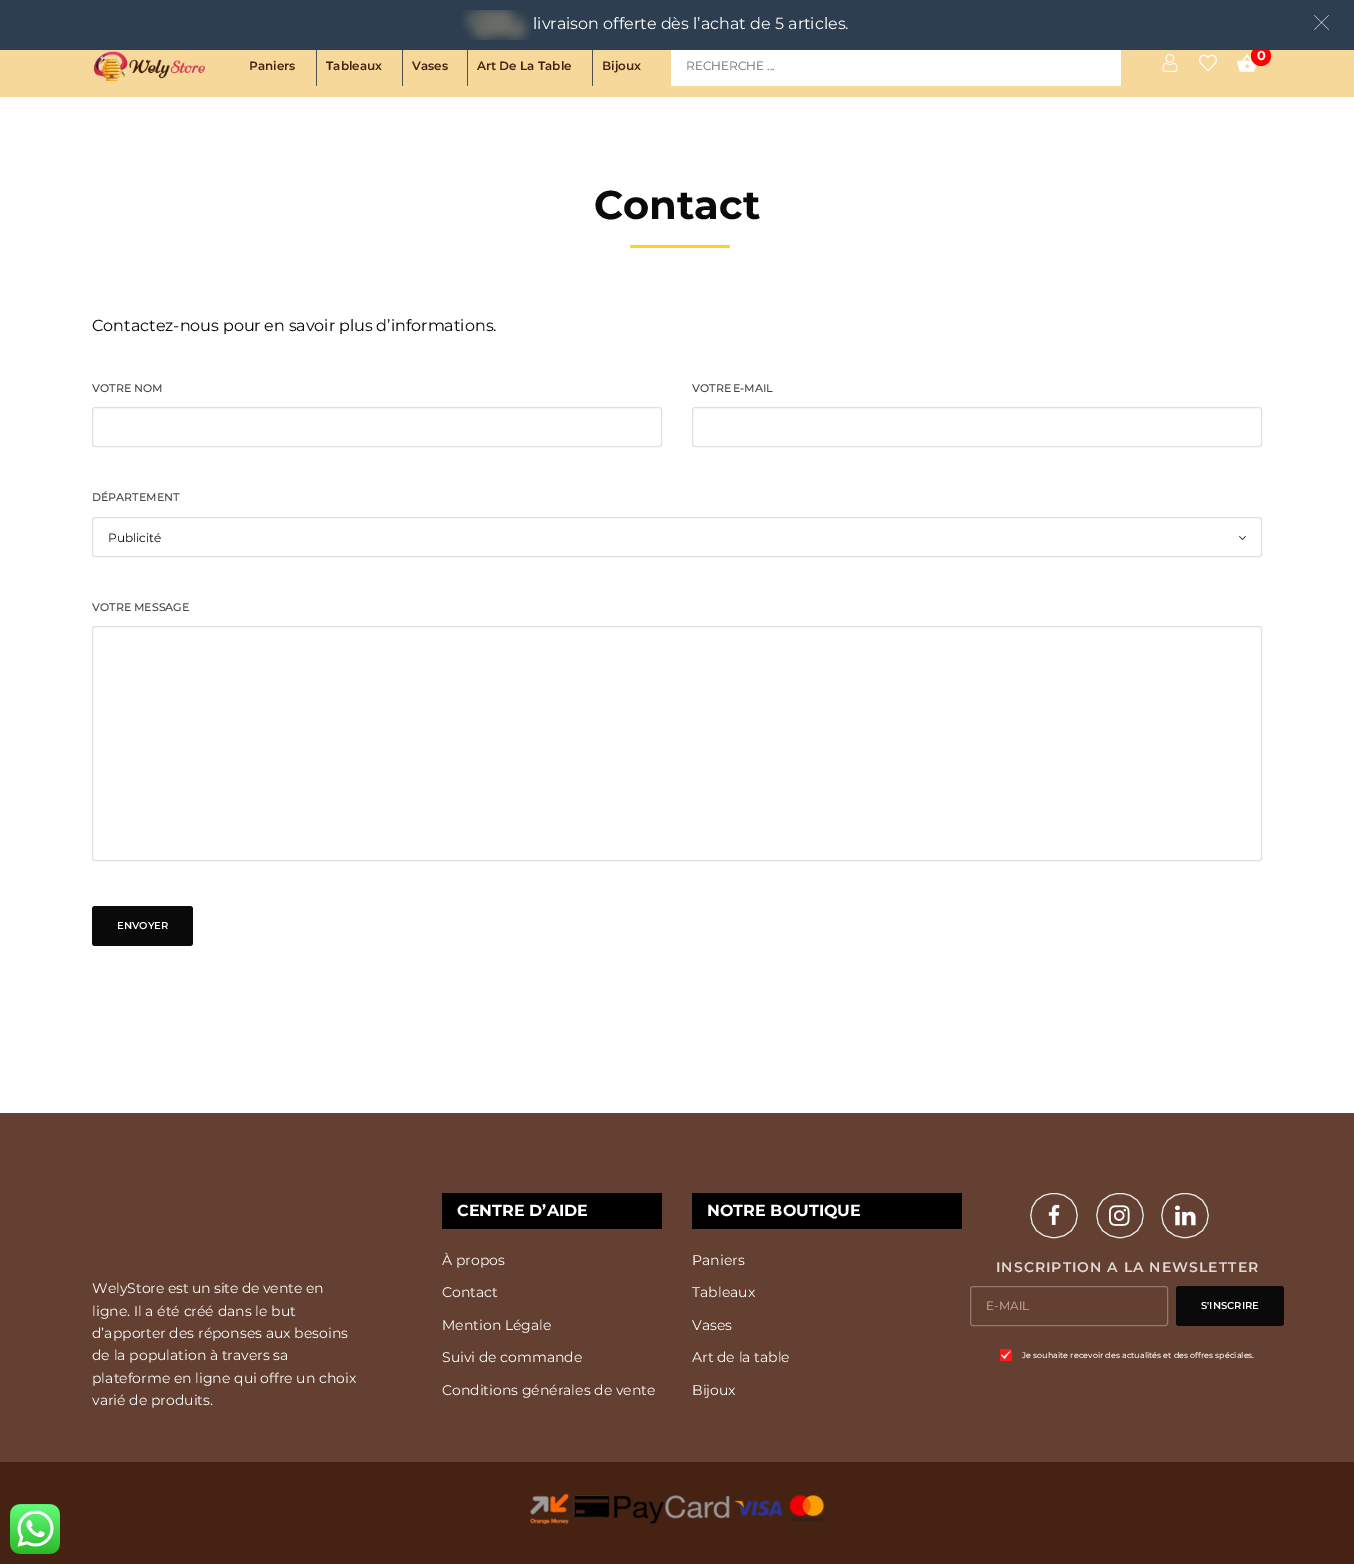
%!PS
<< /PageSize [1354 1564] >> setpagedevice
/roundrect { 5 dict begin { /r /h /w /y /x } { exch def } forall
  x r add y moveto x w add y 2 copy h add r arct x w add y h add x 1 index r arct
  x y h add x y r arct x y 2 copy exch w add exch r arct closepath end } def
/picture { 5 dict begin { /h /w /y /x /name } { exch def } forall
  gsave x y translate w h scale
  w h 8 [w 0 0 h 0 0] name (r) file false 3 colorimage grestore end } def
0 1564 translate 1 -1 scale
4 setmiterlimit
1 setgray
0 0 1354 1564 rectfill
0.965 0.847 0.608 setrgbcolor
0 50 1354 47 rectfill
0.318 0.306 0.306 setrgbcolor
316 46 1 40 rectfill
402 46 1 40 rectfill
467 46 1 40 rectfill
592 46 1 40 rectfill
(img6.rgb) 1237 54 20 18 picture
1 0 0 setrgbcolor
newpath 1261 56 10 0 360 arc closepath fill
0.176 0.243 0.314 setrgbcolor
0 0 1354 50 rectfill
(img1.rgb) 461 10 70 30 picture
/Montserrat-Regular [16 0 0 -16 0 0] selectfont
1 setgray
533 29 moveto (livraison offerte dès l’achat de 5 articles.) show
(img2.rgb) 1314 15 15 15 picture
(img3.rgb) 93 51 112 30 picture
/Montserrat-SemiBold [12 0 0 -12 0 0] selectfont
0.271 0.129 0.055 setrgbcolor
249 70 moveto (Paniers) show
326 70 moveto (Tableaux) show
412 70 moveto (Vases) show
477 70 moveto (Art De La Table) show
602 70 moveto (Bijoux) show
1 setgray
671 50 450 36 rectfill
/Montserrat-Regular [12 0 0 -12 0 0] selectfont
0.424 setgray
686 70 moveto (RECHERCHE ...) show
(img4.rgb) 1162 54 16 18 picture
(img5.rgb) 1199 54 18 18 picture
/Montserrat-Bold [13 0 0 -13 0 0] selectfont
1 setgray
1257 60 moveto (0) show
/Montserrat-Bold [40 0 0 -40 0 0] selectfont
0.039 setgray
594 219 moveto (Contact) show
0.98 0.827 0.145 setrgbcolor
630 245 100 3 rectfill
/Montserrat-Regular [16 0 0 -16 0 0] selectfont
0.039 setgray
92 331 moveto -0.5 0 32 (Contactez-nous pour en savoir plus d’informations.) widthshow
/Montserrat-Medium [11 0 0 -11 0 0] selectfont
0.251 setgray
92 392 moveto (VOTRE NOM) show
0.875 setgray
92.5 407.5 569 39 2.5 roundrect stroke
0.251 setgray
692 392 moveto -1 0 32 (VOTRE E-MAIL) widthshow
0.875 setgray
692.5 407.5 569 39 2.5 roundrect stroke
0.251 setgray
92 501 moveto (DÉPARTEMENT) show
(img7.rgb) 1239 536 7 4 picture
0.875 setgray
92.5 517.5 1169 39 2.5 roundrect stroke
/Montserrat-Regular [12 0 0 -12 0 0] selectfont
0.039 setgray
108 542 moveto (Publicité) show
/Montserrat-Medium [11 0 0 -11 0 0] selectfont
0.251 setgray
92 611 moveto (VOTRE MESSAGE) show
0.875 setgray
92.5 626.5 1169 234 2.5 roundrect stroke
0.039 setgray
92 906 101 40 3 roundrect fill
/Montserrat-SemiBold [10 0 0 -10 0 0] selectfont
1 setgray
117 929 moveto (ENVOYER) show
0.388 0.251 0.192 setrgbcolor
0 1113 1354 349 rectfill
/Montserrat-Regular [14 0 0 -14 0 0] selectfont
1 setgray
92 1293 moveto -0.5 0 32 (WelyStore est un site de vente en) widthshow
92 1316 moveto (ligne. Il a été créé dans le but) show
92 1338 moveto (d’apporter des réponses aux besoins) show
92 1360 moveto (de la population à travers sa) show
92 1383 moveto (plateforme en ligne qui offre un choix) show
92 1405 moveto (varié de produits.) show
0 setgray
442 1193 220 36 rectfill
/Montserrat-Bold [16 0 0 -16 0 0] selectfont
1 setgray
457 1216 moveto (CENTRE D’AIDE) show
/Montserrat-Regular [14 0 0 -14 0 0] selectfont
442 1265 moveto (À propos) show
442 1297 moveto (Contact) show
442 1330 moveto (Mention Légale) show
442 1362 moveto (Suivi de commande) show
442 1395 moveto (Conditions générales de vente) show
0 setgray
692 1193 270 36 rectfill
/Montserrat-Bold [16 0 0 -16 0 0] selectfont
1 setgray
707 1216 moveto (NOTRE BOUTIQUE) show
/Montserrat-Regular [14 0 0 -14 0 0] selectfont
692 1265 moveto (Paniers) show
692 1297 moveto (Tableaux) show
692 1330 moveto (Vases) show
692 1362 moveto (Art de la table) show
692 1395 moveto (Bijoux) show
0.925 0.937 0.945 setrgbcolor
newpath 1054 1193.5 moveto 1085 1193.5 1085 1237.5 1054 1237.5 curveto 1023 1237.5 1023 1193.5 1054 1193.5 curveto closepath stroke
(img8.rgb) 1048 1204 12 21 picture
newpath 1120 1193.5 moveto 1151 1193.5 1151 1237.5 1120 1237.5 curveto 1089 1237.5 1089 1193.5 1120 1193.5 curveto closepath stroke
(img9.rgb) 1109 1205 21 21 picture
newpath 1185 1193.5 moveto 1216 1193.5 1216 1237.5 1185 1237.5 curveto 1154 1237.5 1154 1193.5 1185 1193.5 curveto closepath stroke
(img10.rgb) 1175 1205 21 21 picture
/Montserrat-SemiBold [14 0 0 -14 0 0] selectfont
0.878 0.851 0.839 setrgbcolor
996 1272 moveto 1 0 (INSCRIPTION A LA NEWSLETTER) ashow
0.573 0.475 0.435 setrgbcolor
970.5 1286.5 197 39 2.5 roundrect stroke
/Montserrat-Regular [12 0 0 -12 0 0] selectfont
0.757 0.702 0.678 setrgbcolor
986 1310 moveto (E-MAIL) show
0.039 setgray
1176 1286 108 40 3 roundrect fill
/Montserrat-SemiBold [10 0 0 -10 0 0] selectfont
1 setgray
1201 1309 moveto (S'INSCRIRE) show
1 0.098 0.098 setrgbcolor
1000 1349 12 12 rectfill
(img11.rgb) 1001 1351 10 9 picture
/Montserrat-Medium [8 0 0 -8 0 0] selectfont
1 setgray
1022 1358 moveto (Je souhaite recevoir des actualités et des offres spéciales.) show
0.275 0.133 0.075 setrgbcolor
0 1462 1354 102 rectfill
(img12.rgb) 530 1493 294 32 picture
(img13.rgb) 10 1504 50 50 picture
showpage
